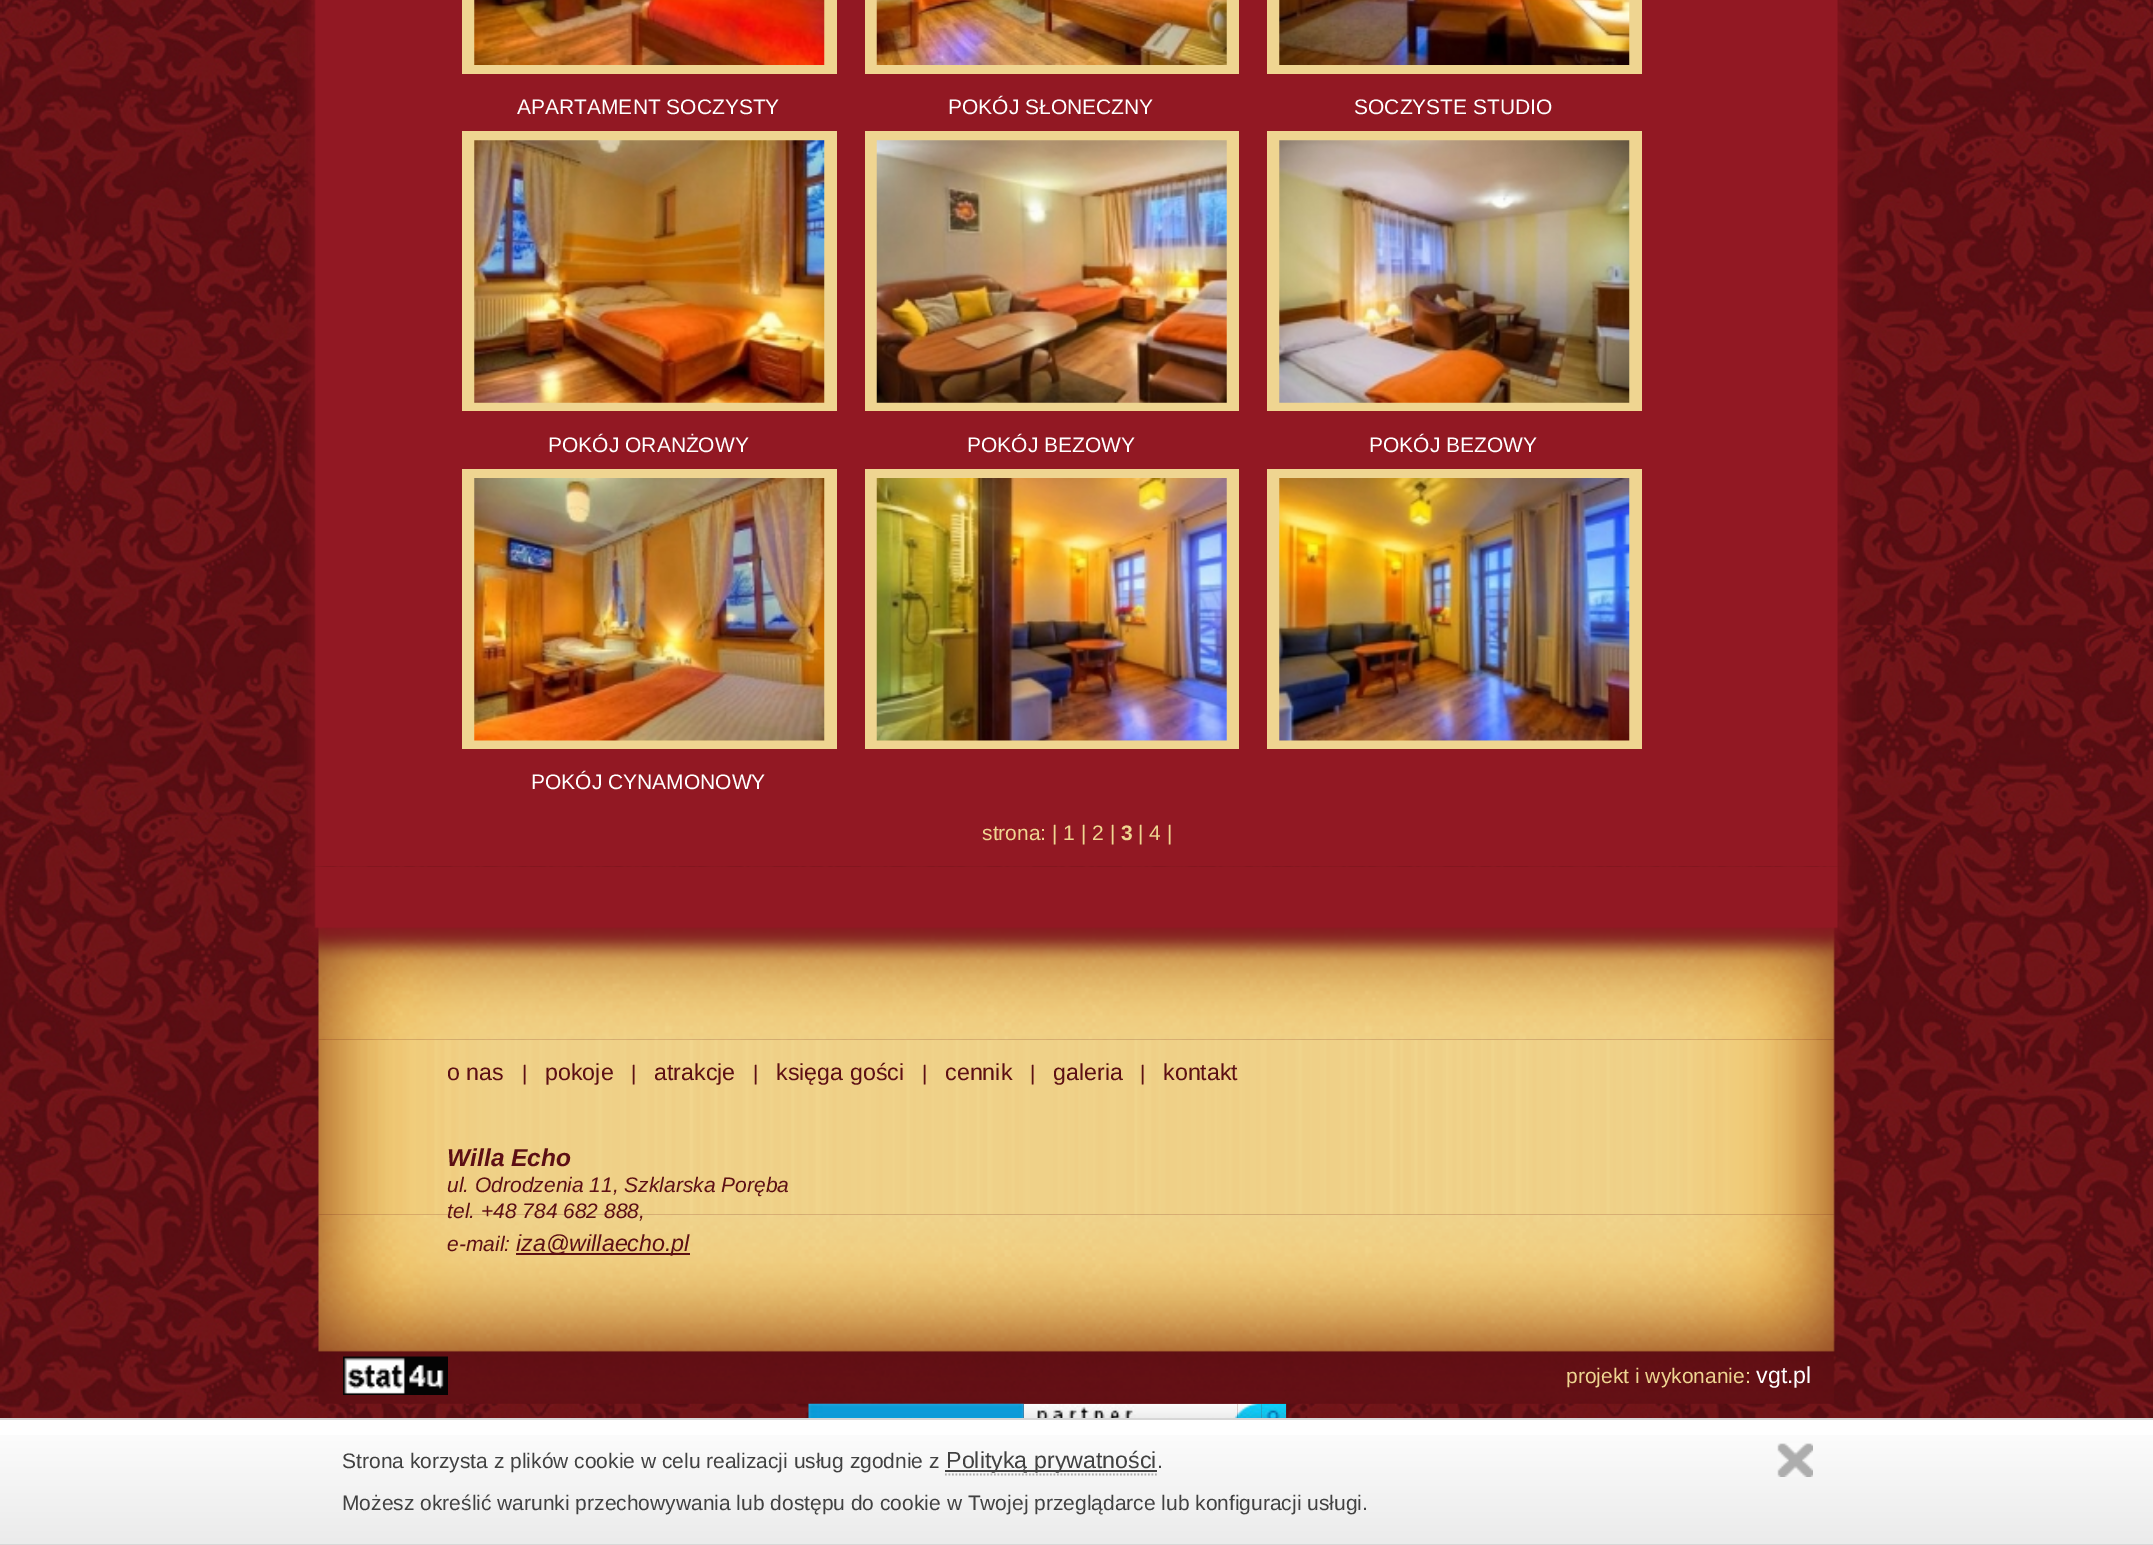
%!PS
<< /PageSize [2153 1545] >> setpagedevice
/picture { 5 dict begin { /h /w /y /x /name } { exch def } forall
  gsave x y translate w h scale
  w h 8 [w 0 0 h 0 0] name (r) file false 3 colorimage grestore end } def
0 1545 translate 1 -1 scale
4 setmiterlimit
1 setgray
0 0 2153 1545 rectfill
(img1.rgb) 0 0 2153 1418 picture
(img12.rgb) 297 866 1560 174 picture
(img2.rgb) 297 0 1560 867 picture
0.937 0.835 0.569 setrgbcolor
462 0 375 74 rectfill
(img3.rgb) 474 0 351 65 picture
/LiberationSans-Regular [21 0 0 -21 0 0] selectfont
1 setgray
517 114 moveto (APARTAMENT SOCZYSTY) show
0.937 0.835 0.569 setrgbcolor
865 0 374 74 rectfill
(img4.rgb) 876 0 351 65 picture
1 setgray
948 114 moveto (POKÓJ SŁONECZNY) show
0.937 0.835 0.569 setrgbcolor
1267 0 375 74 rectfill
(img5.rgb) 1279 0 351 65 picture
1 setgray
1354 114 moveto (SOCZYSTE STUDIO) show
0.937 0.835 0.569 setrgbcolor
462 131 375 280 rectfill
(img6.rgb) 474 140 351 263 picture
1 setgray
548 452 moveto (POKÓJ ORANŻOWY) show
0.937 0.835 0.569 setrgbcolor
865 131 374 280 rectfill
(img7.rgb) 876 140 351 263 picture
1 setgray
967 452 moveto (POKÓJ BEZOWY) show
0.937 0.835 0.569 setrgbcolor
1267 131 375 280 rectfill
(img8.rgb) 1279 140 351 263 picture
1 setgray
1369 452 moveto (POKÓJ BEZOWY) show
0.937 0.835 0.569 setrgbcolor
865 469 374 280 rectfill
(img9.rgb) 876 478 351 263 picture
1267 469 375 280 rectfill
(img10.rgb) 1279 478 351 263 picture
462 469 375 280 rectfill
(img11.rgb) 474 478 351 263 picture
1 setgray
531 789 moveto (POKÓJ CYNAMONOWY) show
0.937 0.835 0.569 setrgbcolor
982 840 moveto (strona: | 1 | 2 |) show
/LiberationSans-Bold [21 0 0 -21 0 0] selectfont
1121 840 moveto (3) show
/LiberationSans-Regular [21 0 0 -21 0 0] selectfont
1138 840 moveto (| 4 |) show
(img13.rgb) 318 1039 1517 176 picture
(img14.rgb) 318 1214 1517 190 picture
/LiberationSans-Regular [23.25 0 0 -23.25 0 0] selectfont
0.361 0.059 0.078 setrgbcolor
447 1080 moveto (o nas) show
/LiberationSans-Regular [21 0 0 -21 0 0] selectfont
522 1080 moveto (|) show
/LiberationSans-Regular [23.25 0 0 -23.25 0 0] selectfont
545 1080 moveto (pokoje) show
/LiberationSans-Regular [21 0 0 -21 0 0] selectfont
631 1080 moveto (|) show
/LiberationSans-Regular [23.25 0 0 -23.25 0 0] selectfont
654 1080 moveto (atrakcje) show
/LiberationSans-Regular [21 0 0 -21 0 0] selectfont
753 1080 moveto (|) show
/LiberationSans-Regular [23.25 0 0 -23.25 0 0] selectfont
776 1080 moveto (księga gości) show
/LiberationSans-Regular [21 0 0 -21 0 0] selectfont
922 1080 moveto (|) show
/LiberationSans-Regular [23.25 0 0 -23.25 0 0] selectfont
945 1080 moveto (cennik) show
/LiberationSans-Regular [21 0 0 -21 0 0] selectfont
1030 1080 moveto (|) show
/LiberationSans-Regular [23.25 0 0 -23.25 0 0] selectfont
1053 1080 moveto (galeria) show
/LiberationSans-Regular [21 0 0 -21 0 0] selectfont
1140 1080 moveto (|) show
/LiberationSans-Regular [23.25 0 0 -23.25 0 0] selectfont
1163 1080 moveto (kontakt) show
/LiberationSans-BoldItalic [24.5 0 0 -24.5 0 0] selectfont
447 1166 moveto (Willa Echo) show
/LiberationSans-Italic [21 0 0 -21 0 0] selectfont
447 1192 moveto (ul. Odrodzenia 11, Szklarska Poręba) show
447 1218 moveto (tel. +48 784 682 888,) show
447 1251 moveto (e-mail:) show
516 1253 174 2 rectfill
/LiberationSans-Italic [23.25 0 0 -23.25 0 0] selectfont
516 1251 moveto (iza@willaecho.pl) show
(img15.rgb) 343 1356 105 39 picture
/LiberationSans-Regular [21 0 0 -21 0 0] selectfont
0.937 0.835 0.569 setrgbcolor
1566 1383 moveto (projekt i wykonanie:) show
/LiberationSans-Regular [23.25 0 0 -23.25 0 0] selectfont
1 setgray
1756 1383 moveto (vgt.pl) show
(img16.rgb) 808 1403 216 15 picture
(img17.rgb) 1023 1403 215 15 picture
(img18.rgb) 1237 1403 25 15 picture
(img19.rgb) 1261 1403 26 15 picture
gsave newpath 0 1435 moveto 2153 1435 lineto 2153 1544 lineto 0 1544 lineto closepath clip newpath
<< /ShadingType 2 /ColorSpace /DeviceRGB /Coords [1077 1419 1077 1544] /Extend [true true] /Function << /FunctionType 2 /Domain [0 1] /C0 [1 1 1] /C1 [0.922 0.922 0.922] /N 1 >> >> shfill grestore
0.843 setgray
0 1418 2153 2 rectfill
0 1544 2153 1 rectfill
/LiberationSans-Regular [21 0 0 -21 0 0] selectfont
0.255 setgray
342 1468 moveto (Strona korzysta z plików cookie w celu realizacji usług zgodnie z) show
945 1470 212 2 rectfill
/LiberationSans-Regular [23.25 0 0 -23.25 0 0] selectfont
946 1468 moveto (Polityką prywatności) show
0.682 setgray
1.8 setlinewidth
[1.75 1.75] 0 setdash
newpath 945 1474.5 moveto 1157 1474.5 lineto stroke
/LiberationSans-Regular [21 0 0 -21 0 0] selectfont
0.255 setgray
1157 1468 moveto (.) show
(img20.rgb) 1777 1443 36 34 picture
342 1510 moveto (Możesz określić warunki przechowywania lub dostępu do cookie w Twojej przeglądarce lub konfiguracji usługi.) show
showpage
